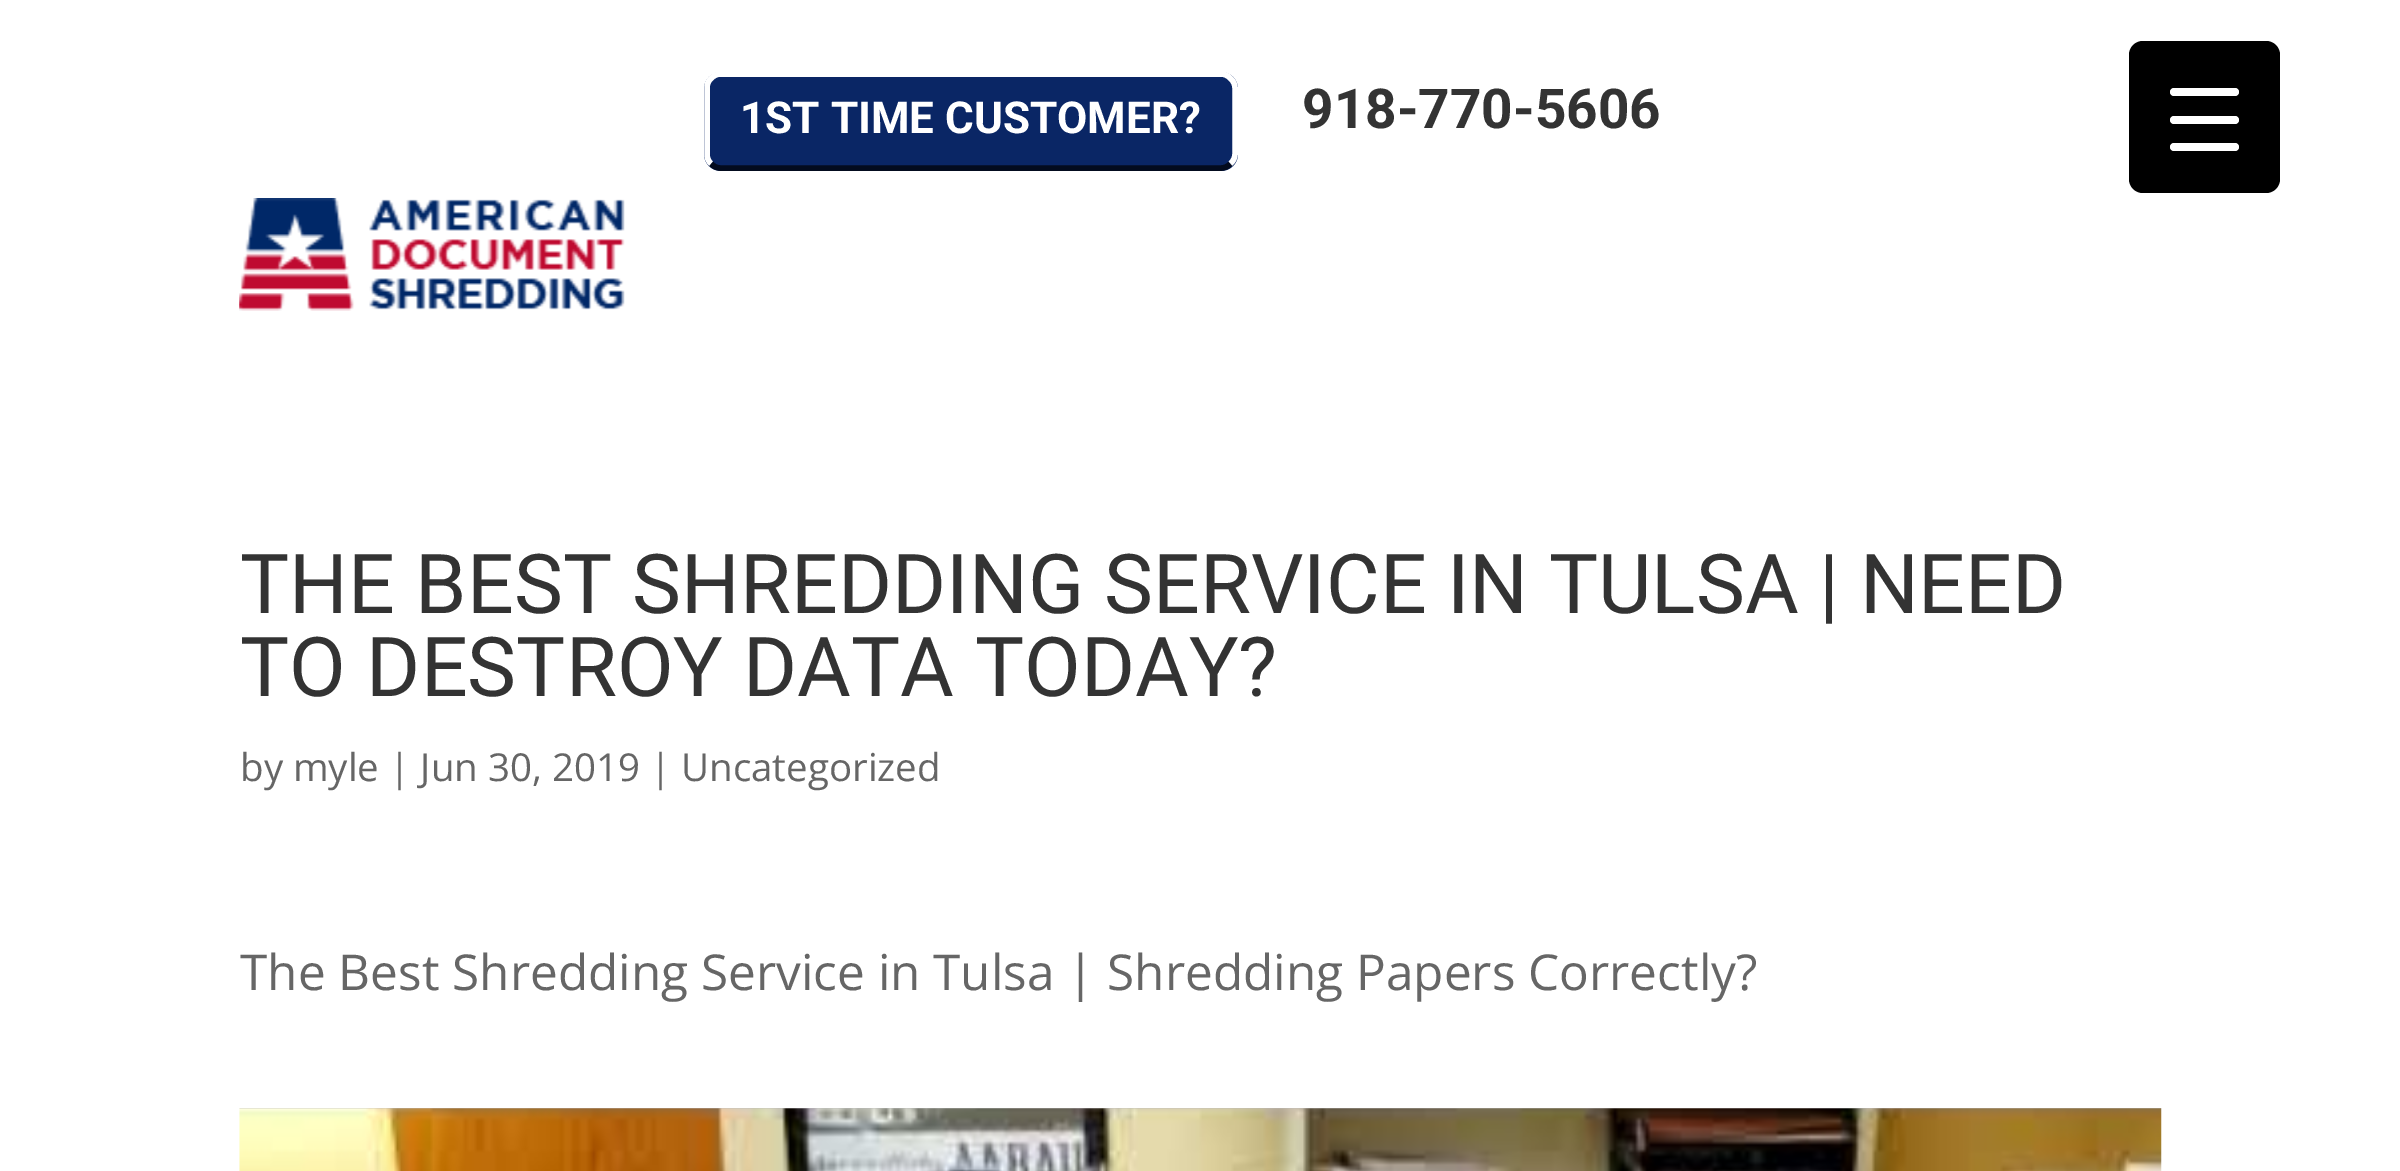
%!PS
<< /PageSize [2400 1171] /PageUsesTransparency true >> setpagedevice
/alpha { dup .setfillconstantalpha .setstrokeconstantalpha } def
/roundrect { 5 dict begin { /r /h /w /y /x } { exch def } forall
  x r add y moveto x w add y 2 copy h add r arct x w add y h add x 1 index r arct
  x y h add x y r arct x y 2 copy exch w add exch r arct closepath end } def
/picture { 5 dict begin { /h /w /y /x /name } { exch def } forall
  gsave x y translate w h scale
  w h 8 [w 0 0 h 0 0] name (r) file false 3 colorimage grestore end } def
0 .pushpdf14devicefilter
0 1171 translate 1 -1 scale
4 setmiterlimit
1 setgray
0 0 2400 1171 rectfill
0.039 0.149 0.396 setrgbcolor
704 72 534 99 17 roundrect fill
0.7 alpha
0 setgray
5.5 setlinewidth
newpath 1230.5 163.5 moveto 1228 166.5 1224.5 168 1221 168 curveto 720.5 168 lineto 717 168 713.5 166.5 711 163.5 curveto stroke
1 alpha
1 setgray
newpath 711 163.5 moveto 708 161 707 157.5 707 154 curveto 707 88 lineto 707 84.5 708 81 711 78.5 curveto 713.5 75.5 717 74 720.5 74 curveto 1221 74 lineto 1224.5 74 1228 75.5 1230.5 78.5 curveto 1233.5 81 1235 84.5 1235 88 curveto 1235 154 lineto 1235 157.5 1233.5 161 1230.5 163.5 curveto stroke
/Roboto-Bold [44 0 0 -44 0 0] selectfont
740 133 moveto (1ST TIME CUSTOMER?) show
/Roboto-Bold [55 0 0 -55 0 0] selectfont
0.2 setgray
1302 128 moveto (918-770-5606) show
(img1.rgb) 239 198 386 113 picture
/Roboto-Regular [82.5 0 0 -82.5 0 0] selectfont
240 613 moveto (THE BEST SHREDDING SERVICE IN TULSA | NEED) show
240 696 moveto (TO DESTROY DATA TODAY?) show
/OpenSans-Regular [38.5 0 0 -38.5 0 0] selectfont
0.4 setgray
240 781 moveto (by myle | Jun 30, 2019 | Uncategorized) show
/OpenSans-Regular [49.5 0 0 -49.5 0 0] selectfont
240 990 moveto (The Best Shredding Service in Tulsa | Shredding Papers Correctly?) show
(img2.rgb) 239 1108 1923 63 picture
0 setgray
2129 41 151 152 14 roundrect fill
1 setgray
2170 116 69 8 4 roundrect fill
2170 88 69 8 4 roundrect fill
2170 143 69 8 4 roundrect fill
.poppdf14devicefilter showpage
